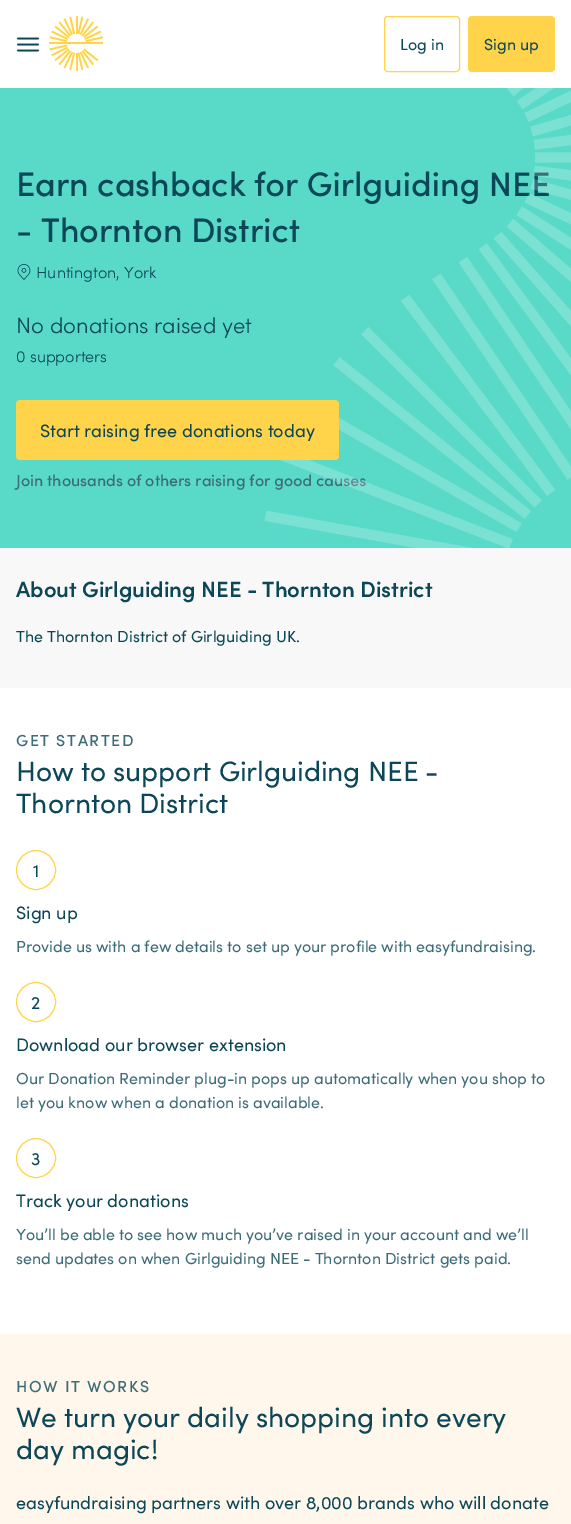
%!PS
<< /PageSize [571 1524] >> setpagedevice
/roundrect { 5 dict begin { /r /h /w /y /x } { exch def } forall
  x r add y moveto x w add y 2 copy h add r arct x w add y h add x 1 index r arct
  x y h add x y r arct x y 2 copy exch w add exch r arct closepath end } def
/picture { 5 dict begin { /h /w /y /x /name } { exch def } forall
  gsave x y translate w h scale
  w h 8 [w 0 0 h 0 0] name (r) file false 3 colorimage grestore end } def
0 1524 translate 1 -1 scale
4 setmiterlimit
1 setgray
0 0 571 1524 rectfill
(img1.rgb) 17 37 22 15 picture
(img2.rgb) 49 16 54 55 picture
1 0.831 0.29 setrgbcolor
384.5 16.5 75 55 3.5 roundrect stroke
/Sofia-Regular [16 0 0 -16 0 0] selectfont
0.047 0.278 0.345 setrgbcolor
400 50 moveto (Log in) show
1 0.831 0.29 setrgbcolor
468 16 87 56 4 roundrect fill
0.047 0.278 0.345 setrgbcolor
484 50 moveto (Sign up) show
0.349 0.851 0.784 setrgbcolor
0 88 571 460 rectfill
/Sofia-Medium [34 0 0 -34 0 0] selectfont
0.047 0.278 0.345 setrgbcolor
16 196 moveto (Earn cashback for Girlguiding NEE) show
16 242 moveto (- Thornton District) show
/Sofia-Medium [16 0 0 -16 0 0] selectfont
0.239 0.424 0.475 setrgbcolor
16 486 moveto (Join thousands of others raising for good causes) show
(img3.rgb) 264 88 307 460 picture
(img4.rgb) 17 264 14 16 picture
/Sofia-Light [16 0 0 -16 0 0] selectfont
0.047 0.278 0.345 setrgbcolor
36 278 moveto (Huntington, York) show
/Sofia-Light [22 0 0 -22 0 0] selectfont
16 333 moveto (No donations raised yet) show
/Sofia-Light [16 0 0 -16 0 0] selectfont
16 362 moveto (0 supporters) show
1 0.831 0.29 setrgbcolor
16 400 323 60 4 roundrect fill
/Sofia-Regular [18 0 0 -18 0 0] selectfont
0.047 0.278 0.345 setrgbcolor
40 437 moveto (Start raising free donations today) show
0.973 setgray
0 548 571 140 rectfill
/Sofia-SemiBold [22 0 0 -22 0 0] selectfont
0.047 0.278 0.345 setrgbcolor
16 597 moveto (About Girlguiding NEE - Thornton District) show
/Sofia-Regular [16 0 0 -16 0 0] selectfont
16 642 moveto (The Thornton District of Girlguiding UK.) show
/Sofia-Medium [16 0 0 -16 0 0] selectfont
0.239 0.424 0.475 setrgbcolor
16 746 moveto 1.6 0 (GET STARTED) ashow
/Sofia-Regular [28 0 0 -28 0 0] selectfont
0.047 0.278 0.345 setrgbcolor
16 781 moveto (How to support Girlguiding NEE -) show
16 813 moveto (Thornton District) show
1 0.831 0.29 setrgbcolor
newpath 36 870 19.5 0 360 arc closepath stroke
/Sofia-Regular [18 0 0 -18 0 0] selectfont
0.047 0.278 0.345 setrgbcolor
33 877 moveto (1) show
16 919 moveto (Sign up) show
/Sofia-Regular [16 0 0 -16 0 0] selectfont
0.239 0.424 0.475 setrgbcolor
16 952 moveto (Provide us with a few details to set up your profile with easyfundraising.) show
1 0.831 0.29 setrgbcolor
newpath 36 1002 19.5 0 360 arc closepath stroke
/Sofia-Regular [18 0 0 -18 0 0] selectfont
0.047 0.278 0.345 setrgbcolor
31 1009 moveto (2) show
16 1051 moveto (Download our browser extension) show
/Sofia-Regular [16 0 0 -16 0 0] selectfont
0.239 0.424 0.475 setrgbcolor
16 1084 moveto (Our Donation Reminder plug-in pops up automatically when you shop to) show
16 1108 moveto (let you know when a donation is available.) show
1 0.831 0.29 setrgbcolor
newpath 36 1158 19.5 0 360 arc closepath stroke
/Sofia-Regular [18 0 0 -18 0 0] selectfont
0.047 0.278 0.345 setrgbcolor
31 1165 moveto (3) show
16 1207 moveto (Track your donations) show
/Sofia-Regular [16 0 0 -16 0 0] selectfont
0.239 0.424 0.475 setrgbcolor
16 1240 moveto (You’ll be able to see how much you’ve raised in your account and we’ll) show
16 1264 moveto (send updates on when Girlguiding NEE - Thornton District gets paid.) show
1 0.969 0.922 setrgbcolor
0 1334 571 190 rectfill
/Sofia-Medium [16 0 0 -16 0 0] selectfont
0.239 0.424 0.475 setrgbcolor
16 1392 moveto 1.6 0 (HOW IT WORKS) ashow
/Sofia-Regular [28 0 0 -28 0 0] selectfont
0.047 0.278 0.345 setrgbcolor
16 1427 moveto (We turn your daily shopping into every) show
16 1459 moveto (day magic!) show
/Sofia-Regular [18 0 0 -18 0 0] selectfont
16 1509 moveto (easyfundraising partners with over 8,000 brands who will donate) show
showpage
